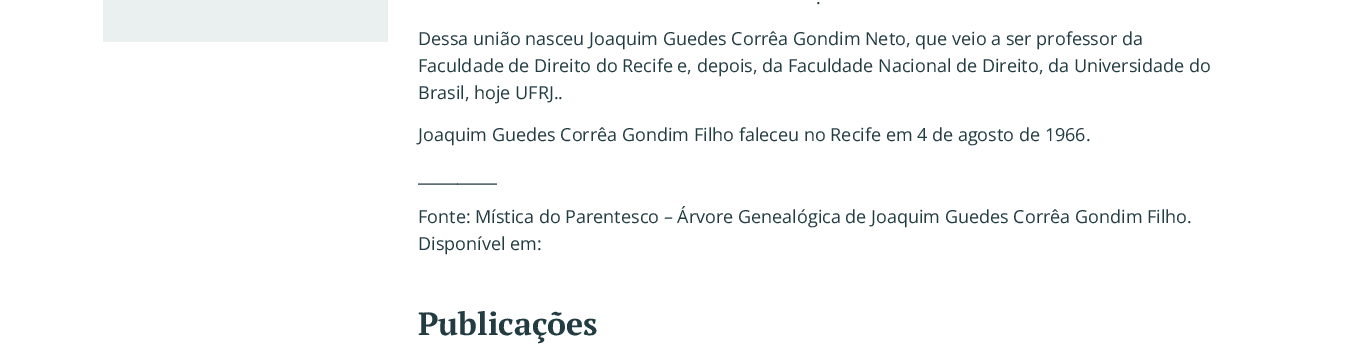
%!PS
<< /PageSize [1346 347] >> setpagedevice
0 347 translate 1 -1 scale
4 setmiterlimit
1 setgray
0 0 1346 347 rectfill
0.918 0.937 0.937 setrgbcolor
103 0 285 42 rectfill
/OpenSans-Regular [18 0 0 -18 0 0] selectfont
0.133 0.235 0.259 setrgbcolor
816 4 moveto (.) show
418 45 moveto (Dessa união nasceu Joaquim Guedes Corrêa Gondim Neto, que veio a ser professor da) show
418 72 moveto (Faculdade de Direito do Recife e, depois, da Faculdade Nacional de Direito, da Universidade do) show
418 99 moveto (Brasil, hoje UFRJ..) show
418 141 moveto (Joaquim Guedes Corrêa Gondim Filho faleceu no Recife em 4 de agosto de 1966.) show
418 182 moveto (__________) show
418 223 moveto (Fonte: Mística do Parentesco – Árvore Genealógica de Joaquim Guedes Corrêa Gondim Filho.) show
418 250 moveto (Disponível em:) show
/PTSerif-Bold [32 0 0 -32 0 0] selectfont
418 335 moveto (Publicações) show
showpage
